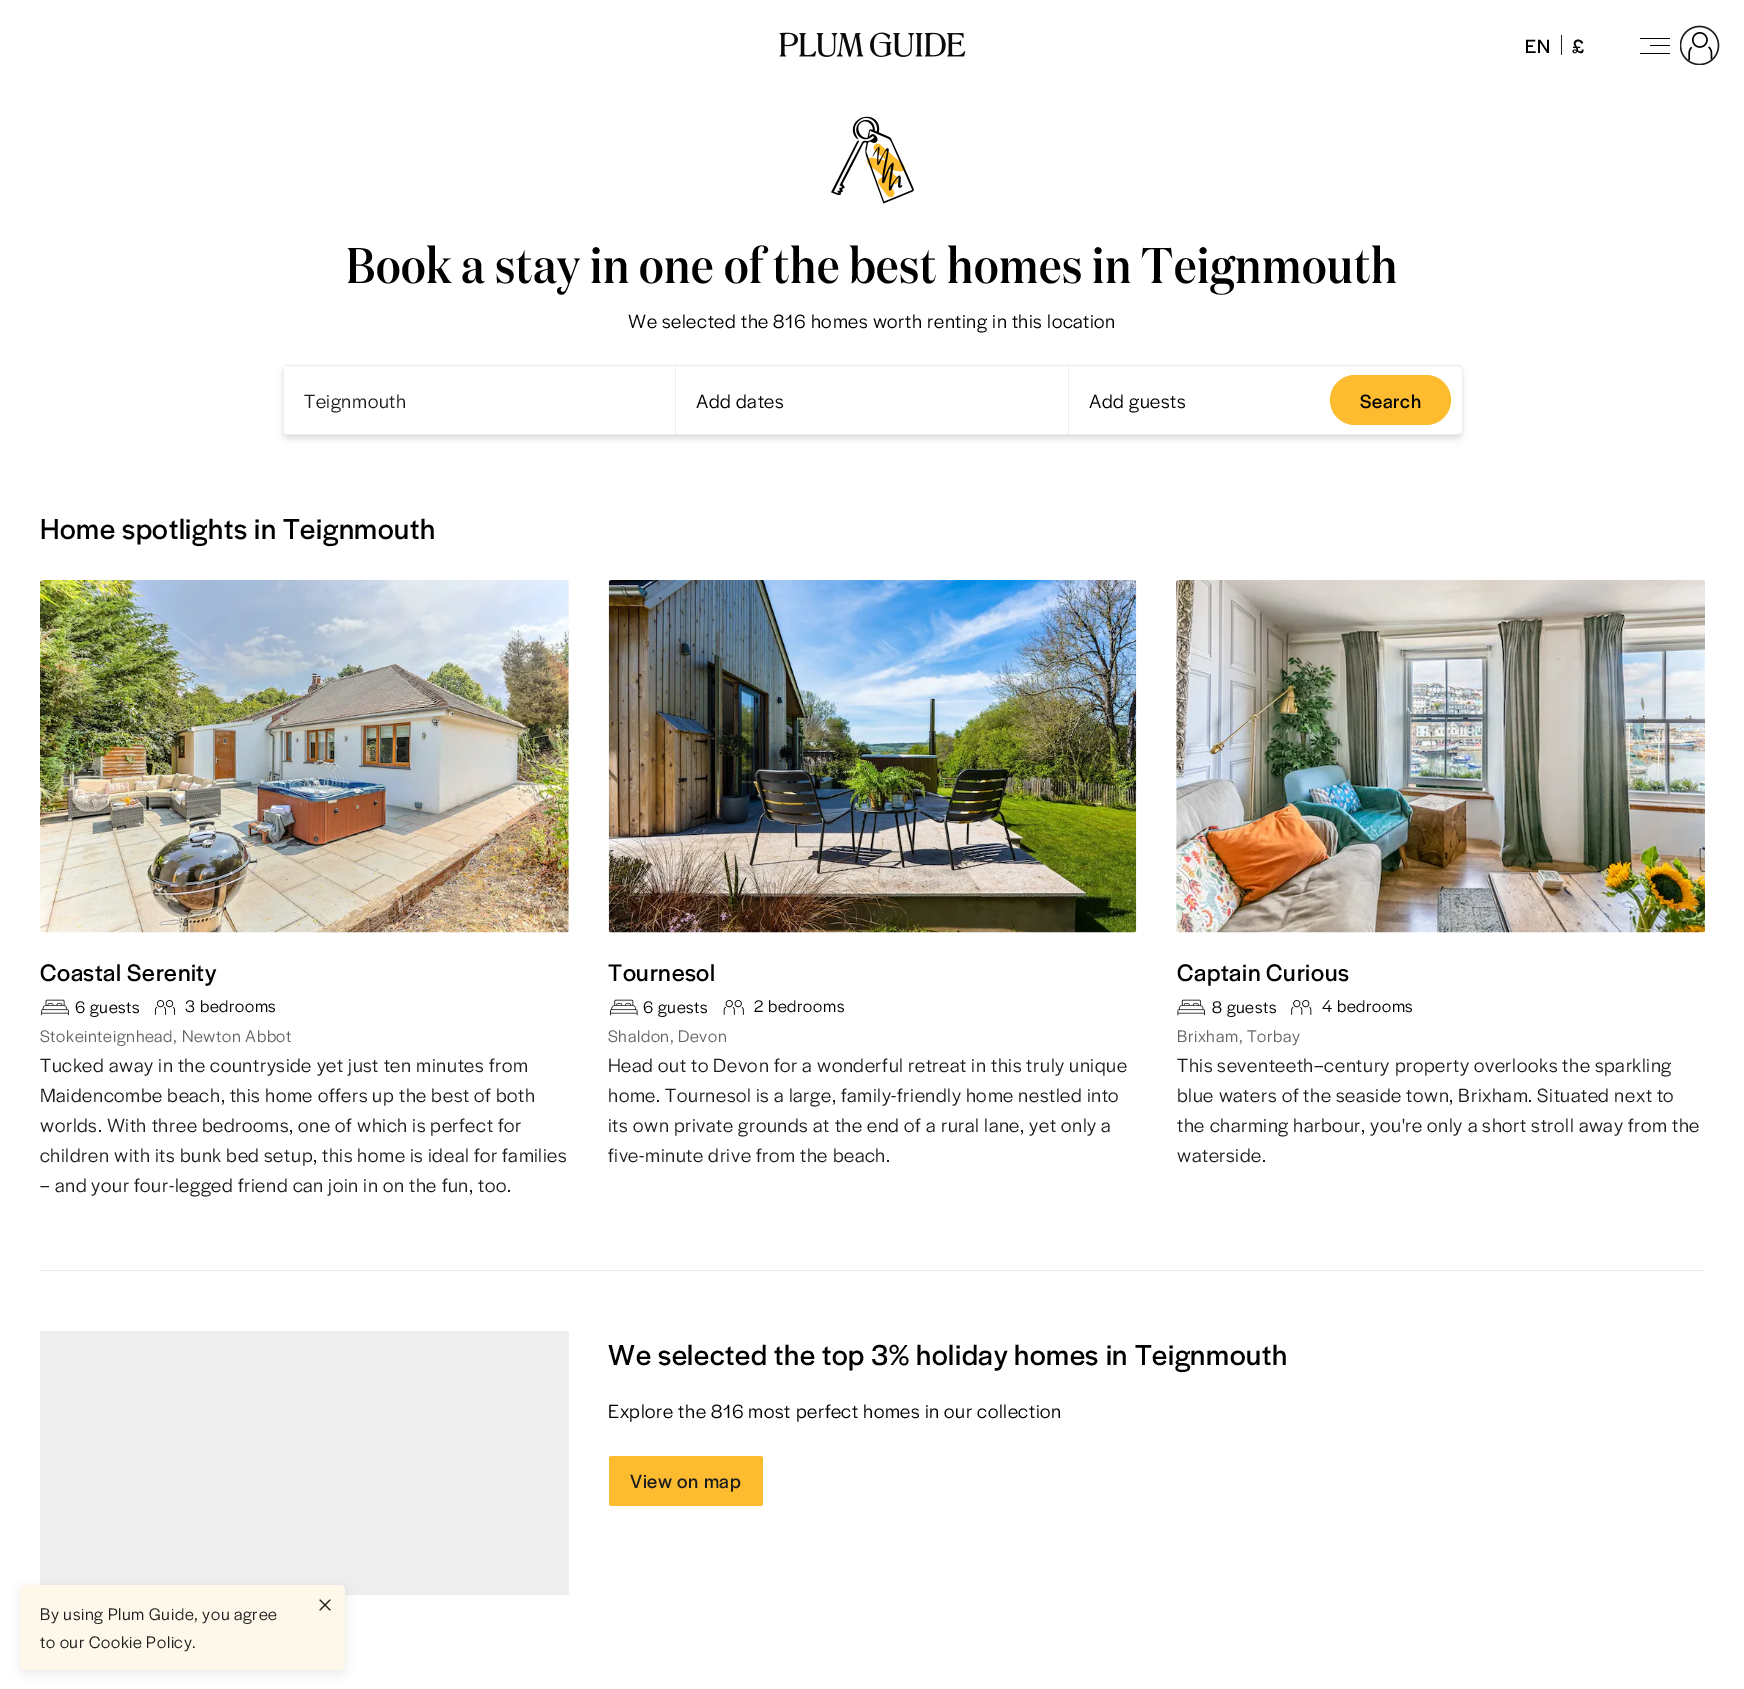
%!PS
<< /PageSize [1744 1689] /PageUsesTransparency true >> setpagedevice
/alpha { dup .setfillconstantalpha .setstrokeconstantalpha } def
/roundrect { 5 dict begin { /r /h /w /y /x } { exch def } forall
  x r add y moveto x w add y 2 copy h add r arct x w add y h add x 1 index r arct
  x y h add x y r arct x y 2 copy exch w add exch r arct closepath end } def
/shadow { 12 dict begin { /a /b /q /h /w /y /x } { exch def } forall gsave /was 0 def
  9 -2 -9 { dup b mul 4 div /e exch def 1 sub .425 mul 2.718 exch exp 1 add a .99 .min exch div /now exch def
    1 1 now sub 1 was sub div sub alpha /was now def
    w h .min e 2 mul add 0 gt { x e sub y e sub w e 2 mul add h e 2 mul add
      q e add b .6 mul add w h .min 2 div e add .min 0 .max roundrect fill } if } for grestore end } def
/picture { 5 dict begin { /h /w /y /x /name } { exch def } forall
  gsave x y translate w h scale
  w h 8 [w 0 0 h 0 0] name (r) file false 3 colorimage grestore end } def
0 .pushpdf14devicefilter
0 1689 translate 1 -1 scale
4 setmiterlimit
1 setgray
0 0 1744 1689 rectfill
(img1.rgb) 779 32 187 25 picture
/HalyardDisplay-Regular [20 0 0 -20 0 0] selectfont
0 setgray
1525 53 moveto 0.62 0 (EN) ashow
0.114 setgray
1561 35 1 20 rectfill
0 setgray
1572 53 moveto 0.62 0 (£) ashow
1640 38 30 1 rectfill
1640 53 30 1 rectfill
1650 45 20 1 rectfill
(img2.rgb) 1680 25 40 40 picture
(img3.rgb) 831 116 83 88 picture
/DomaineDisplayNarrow-Medium [50 0 0 -50 0 0] selectfont
346 283 moveto 0.62 0 (Book a stay in one of the best homes in Teignmouth) ashow
/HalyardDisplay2-Regular [20 0 0 -20 0 0] selectfont
628 328 moveto 0.62 0 (We selected the 816 homes worth renting in this location) ashow
285 370 1175 65 2.5 2.5 0.1 shadow
284 371 1177 68 4 4 0.1 shadow
1 setgray
283.5 365.5 1179 69 4.5 roundrect gsave fill grestore
0.933 setgray
stroke
675 366 1 68 rectfill
1 setgray
284 366 3 68 rectfill
0.114 setgray
304 408 moveto 0.62 0 (Teignmouth) ashow
0.933 setgray
1068 366 1 68 rectfill
0 setgray
696 408 moveto 0.62 0 (Add dates) ashow
1089 408 moveto 0.62 0 (Add guests) ashow
0.992 0.733 0.188 setrgbcolor
1330 375 121 50 25 roundrect fill
/HalyardDisplay-Regular [20 0 0 -20 0 0] selectfont
0 setgray
1360 408 moveto 0.62 0 (Search) ashow
/HalyardDisplay-Regular [30 0 0 -30 0 0] selectfont
40 539 moveto 0.62 0 (Home spotlights in Teignmouth) ashow
(img4.rgb) 40 580 529 353 picture
/HalyardDisplay-Regular [25 0 0 -25 0 0] selectfont
40 981 moveto 0.62 0 (Coastal Serenity) ashow
(img5.rgb) 41 999 28 17 picture
/HalyardDisplay2-Regular [17.5 0 0 -17.5 0 0] selectfont
75 1013 moveto 0.62 0 (6 guests) ashow
(img6.rgb) 154 1000 22 15 picture
185 1012 moveto 0.62 0 (3 bedrooms) ashow
0.388 0.388 0.4 setrgbcolor
40 1042 moveto 0.62 0 (Stokeinteignhead, Newton Abbot) ashow
/HalyardDisplay2-Regular [20 0 0 -20 0 0] selectfont
0.114 setgray
40 1072 moveto 0.62 0 (Tucked away in the countryside yet just ten minutes from) ashow
40 1102 moveto 0.62 0 (Maidencombe beach, this home offers up the best of both) ashow
40 1132 moveto 0.62 0 (worlds. With three bedrooms, one of which is perfect for) ashow
40 1162 moveto 0.62 0 (children with its bunk bed setup, this home is ideal for families) ashow
40 1192 moveto 0.62 0 (– and your four-legged friend can join in on the fun, too.) ashow
(img7.rgb) 608 580 529 353 picture
/HalyardDisplay-Regular [25 0 0 -25 0 0] selectfont
0 setgray
608 981 moveto 0.62 0 (Tournesol) ashow
(img8.rgb) 610 999 28 17 picture
/HalyardDisplay2-Regular [17.5 0 0 -17.5 0 0] selectfont
643 1013 moveto 0.62 0 (6 guests) ashow
(img9.rgb) 723 1000 21 15 picture
754 1012 moveto 0.62 0 (2 bedrooms) ashow
0.388 0.388 0.4 setrgbcolor
608 1042 moveto 0.62 0 (Shaldon, Devon) ashow
/HalyardDisplay2-Regular [20 0 0 -20 0 0] selectfont
0.114 setgray
608 1072 moveto 0.62 0 (Head out to Devon for a wonderful retreat in this truly unique) ashow
608 1102 moveto 0.62 0 (home. Tournesol is a large, family-friendly home nestled into) ashow
608 1132 moveto 0.62 0 (its own private grounds at the end of a rural lane, yet only a) ashow
608 1162 moveto 0.62 0 (five-minute drive from the beach.) ashow
(img10.rgb) 1176 580 529 353 picture
/HalyardDisplay-Regular [25 0 0 -25 0 0] selectfont
0 setgray
1177 981 moveto 0.62 0 (Captain Curious) ashow
(img11.rgb) 1177 999 28 17 picture
/HalyardDisplay2-Regular [17.5 0 0 -17.5 0 0] selectfont
1212 1013 moveto 0.62 0 (8 guests) ashow
(img12.rgb) 1291 1000 21 15 picture
1322 1012 moveto 0.62 0 (4 bedrooms) ashow
0.388 0.388 0.4 setrgbcolor
1177 1042 moveto 0.62 0 (Brixham, Torbay) ashow
/HalyardDisplay2-Regular [20 0 0 -20 0 0] selectfont
0.114 setgray
1177 1072 moveto 0.62 0 (This seventeeth–century property overlooks the sparkling) ashow
1177 1102 moveto 0.62 0 (blue waters of the seaside town, Brixham. Situated next to) ashow
1177 1132 moveto 0.62 0 (the charming harbour, you're only a short stroll away from the) ashow
1177 1162 moveto 0.62 0 (waterside.) ashow
0.929 0.914 0.902 setrgbcolor
40 1270 1665 1 rectfill
0.933 setgray
40 1331 529 264 2.5 roundrect fill
/HalyardDisplay-Regular [30 0 0 -30 0 0] selectfont
0 setgray
608 1365 moveto 0.62 0 (We selected the top 3% holiday homes in Teignmouth) ashow
/HalyardDisplay2-Regular [20 0 0 -20 0 0] selectfont
608 1418 moveto 0.62 0 (Explore the 816 most perfect homes in our collection) ashow
0.992 0.733 0.188 setrgbcolor
609 1456 154 50 2.5 roundrect fill
/HalyardDisplay-Regular [20 0 0 -20 0 0] selectfont
0.114 setgray
630 1488 moveto 0.62 0 (View on map) ashow
20 1588 325 85 5 5 0.1 shadow
0.996 0.973 0.918 setrgbcolor
20 1585 325 85 5 roundrect fill
(img13.rgb) 319 1599 12 12 picture
/HalyardDisplay2-Regular [17.5 0 0 -17.5 0 0] selectfont
0.114 setgray
40 1620 moveto 0.62 0 (By using Plum Guide, you agree) ashow
40 1648 moveto 0.62 0 (to our Cookie Policy.) ashow
.poppdf14devicefilter showpage
